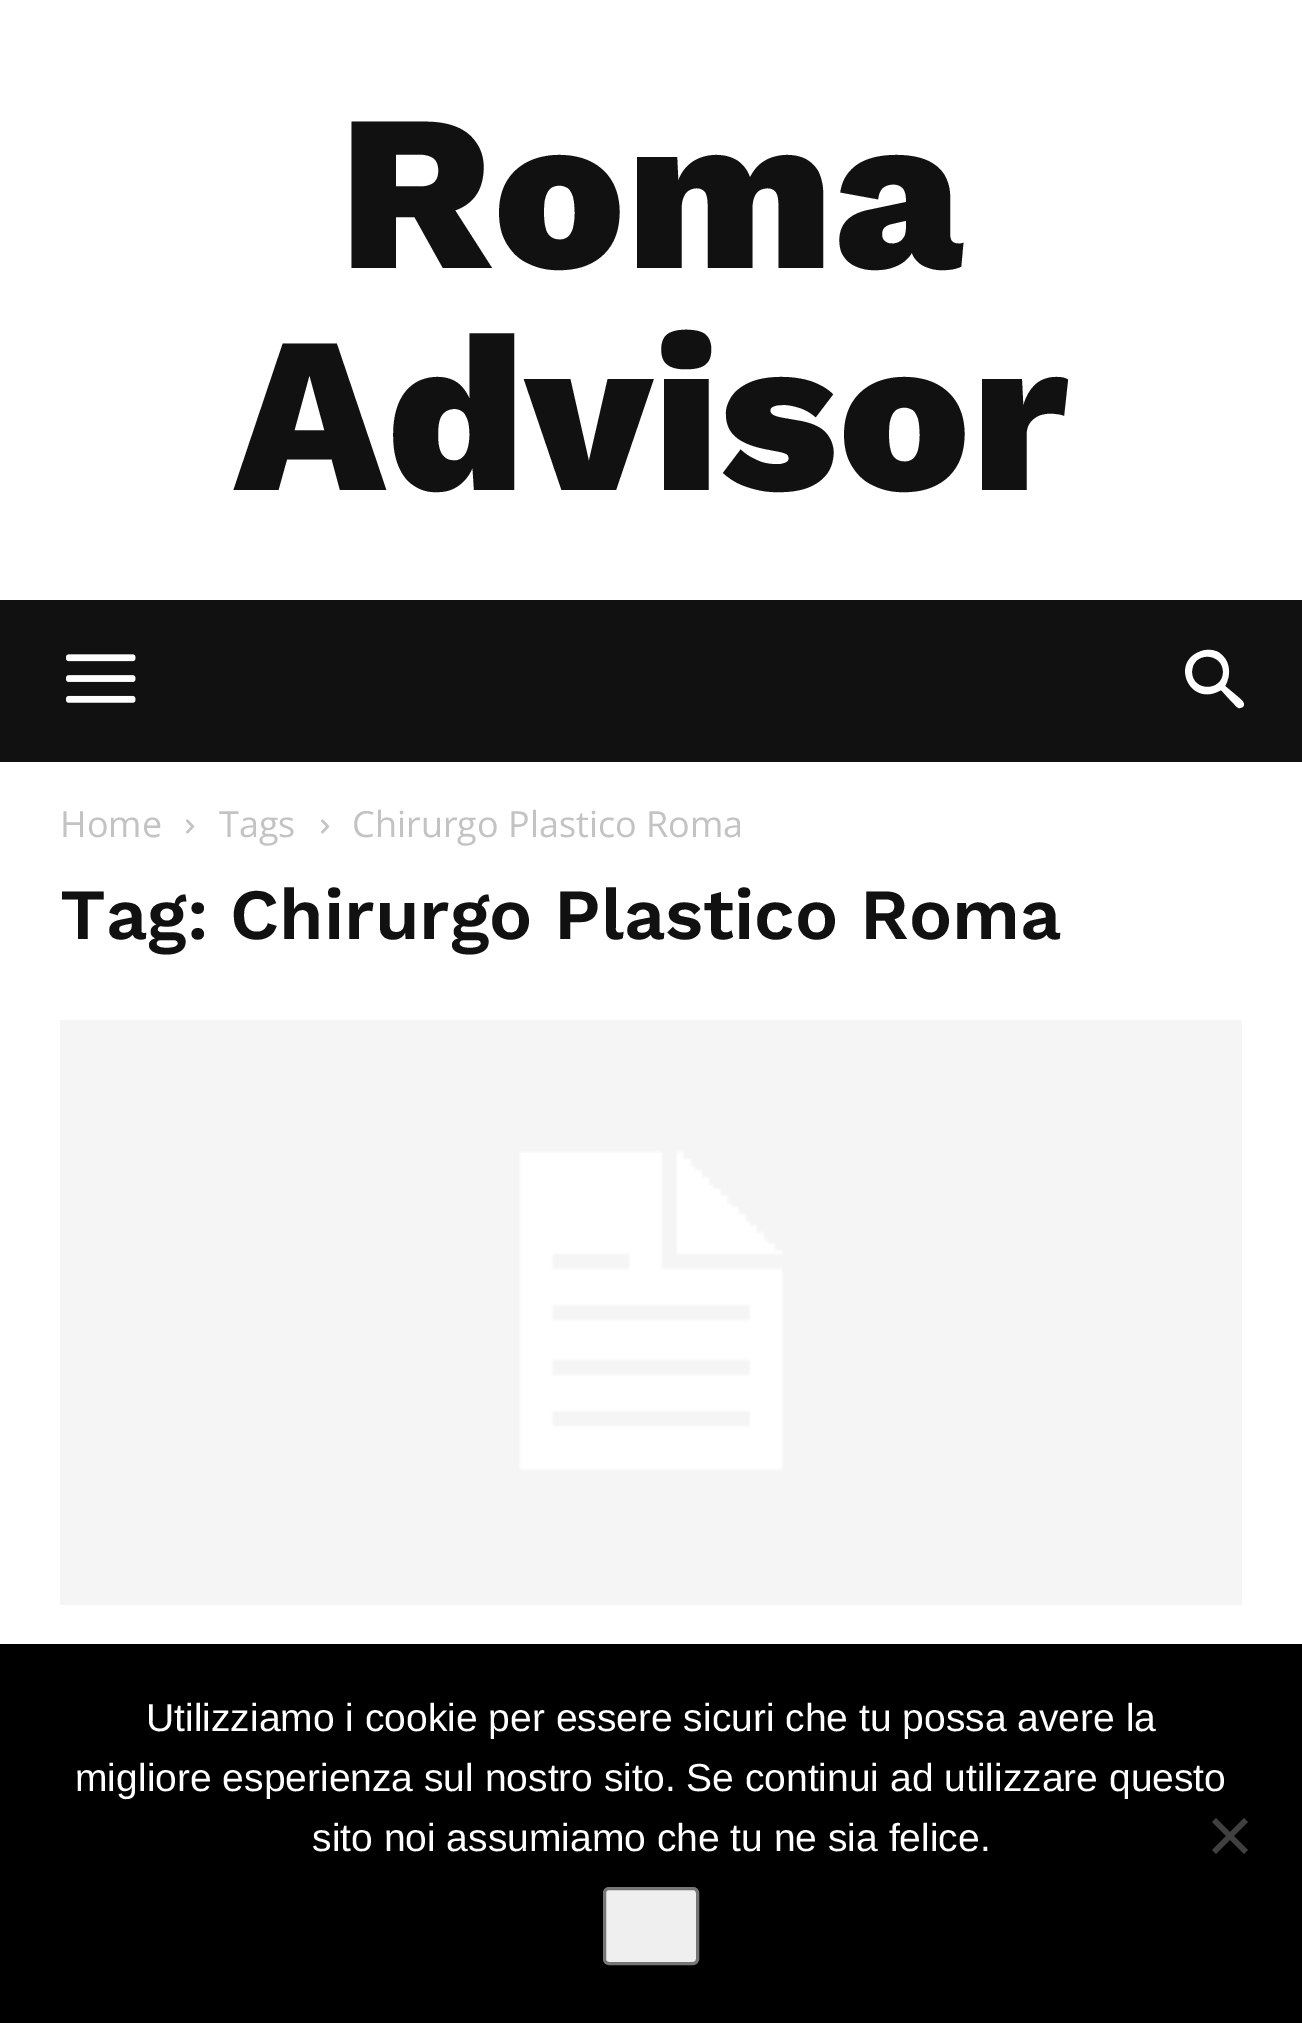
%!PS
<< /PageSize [1302 2023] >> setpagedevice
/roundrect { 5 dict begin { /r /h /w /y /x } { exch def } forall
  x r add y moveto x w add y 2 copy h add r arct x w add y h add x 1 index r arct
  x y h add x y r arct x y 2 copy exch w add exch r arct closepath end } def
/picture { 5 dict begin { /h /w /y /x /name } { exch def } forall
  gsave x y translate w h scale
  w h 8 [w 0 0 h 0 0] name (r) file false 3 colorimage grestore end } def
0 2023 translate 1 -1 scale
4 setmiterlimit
1 setgray
0 0 1302 2023 rectfill
/WorkSans-ExtraBold [222 0 0 -222 0 0] selectfont
0.067 setgray
338 268 moveto (Roma) show
234 490 moveto (Advisor) show
0 600 1302 162 rectfill
(img1.rgb) 66 654 70 49 picture
1 setgray
newpath 1223 672 moveto 1223 692 1192 692 1192 672 curveto 1192 651 1223 652 1223 672 curveto closepath 1244 705 moveto 1244 701 1239 698 1237 696 curveto 1225 686 lineto 1232 674 1230 659 1218 652 curveto 1212 649 1205 649 1199 652 curveto 1170 664 1191 708 1221 690 curveto 1232 702 lineto 1234 703 1237 709 1240 708 curveto 1242 708 1244 706 1244 705 curveto closepath fill
/OpenSans-Regular [36 0 0 -36 0 0] selectfont
0.765 setgray
60 837 moveto (Home) show
(img2.rgb) 186 819 9 15 picture
219 837 moveto (Tags) show
(img2.rgb) 321 819 9 15 picture
352 837 moveto (Chirurgo Plastico Roma) show
/WorkSans-SemiBold [72 0 0 -72 0 0] selectfont
0.067 setgray
60 939 moveto (Tag: Chirurgo Plastico Roma) show
(img3.rgb) 60 1020 1182 585 picture
0 setgray
0 1644 1302 379 rectfill
/LiberationSans-Regular [39 0 0 -39 0 0] selectfont
1 setgray
146 1731 moveto (Utilizziamo i cookie per essere sicuri che tu possa avere la) show
75 1791 moveto (migliore esperienza sul nostro sito. Se continui ad utilizzare questo) show
312 1851 moveto (sito noi assumiamo che tu ne sia felice.) show
0.251 setgray
newpath 1244 1818 moveto 1248 1822 lineto 1216 1854 lineto 1212 1850 lineto closepath fill
newpath 1212 1822 moveto 1216 1818 lineto 1248 1850 lineto 1244 1854 lineto closepath fill
0.937 setgray
604.5 1888.5 93 75 4.5 roundrect gsave fill grestore
0.463 setgray
3 setlinewidth
stroke
showpage
